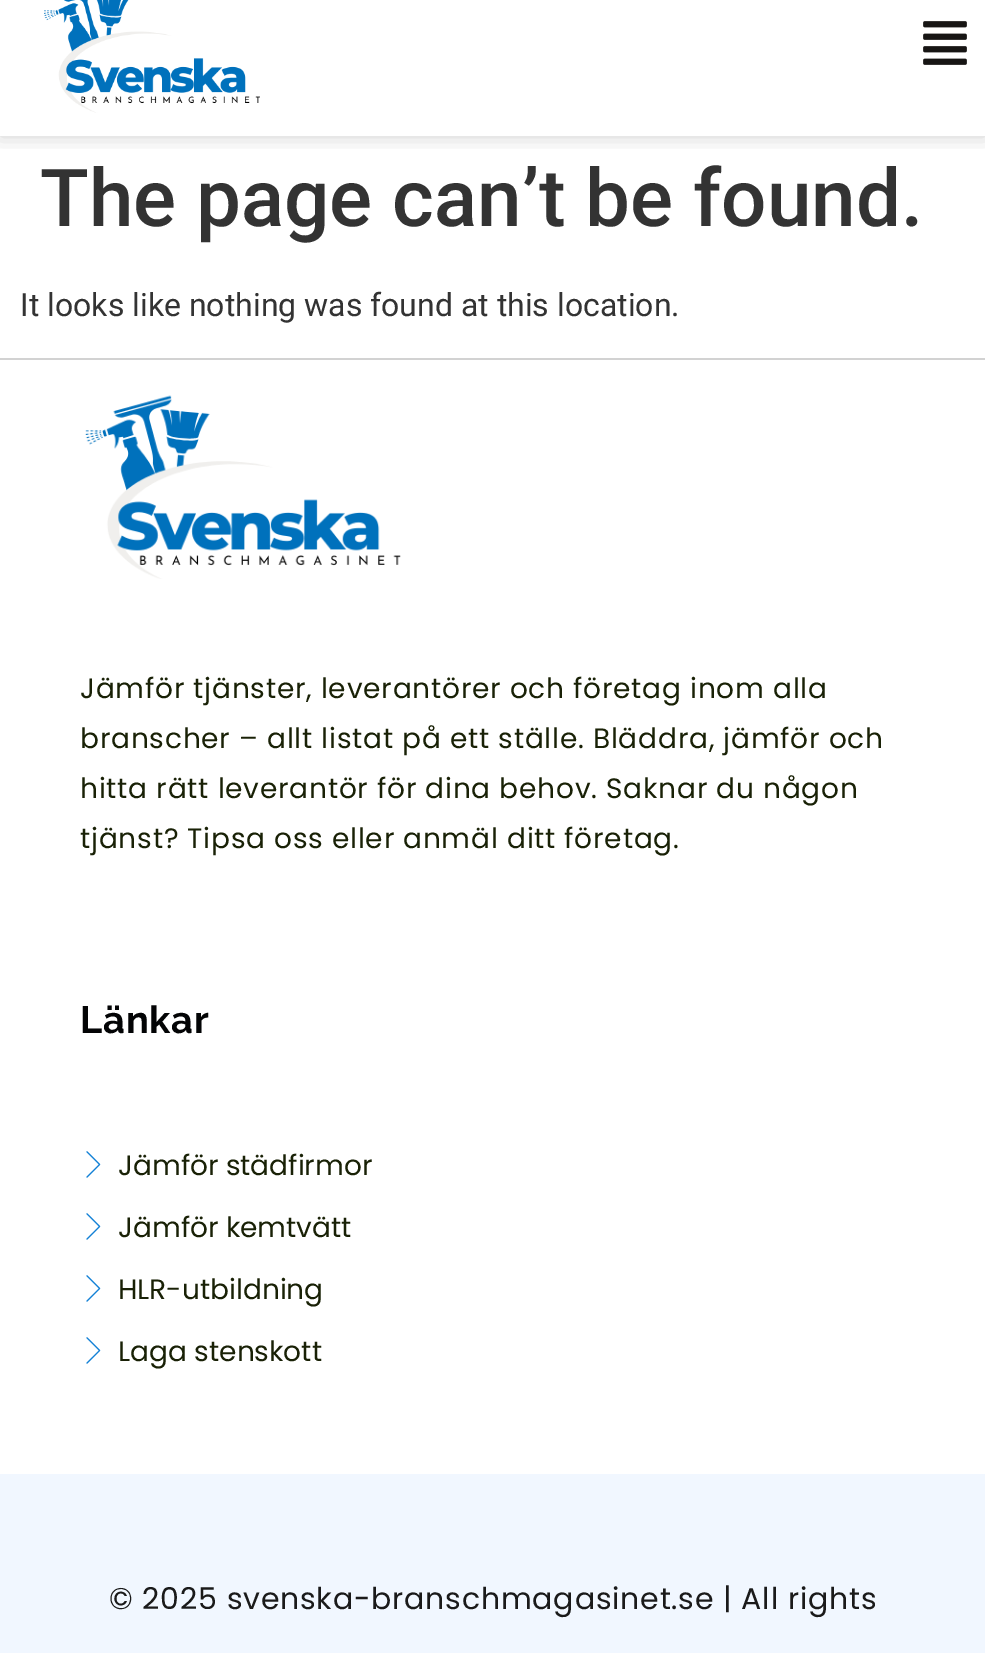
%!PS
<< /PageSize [985 1653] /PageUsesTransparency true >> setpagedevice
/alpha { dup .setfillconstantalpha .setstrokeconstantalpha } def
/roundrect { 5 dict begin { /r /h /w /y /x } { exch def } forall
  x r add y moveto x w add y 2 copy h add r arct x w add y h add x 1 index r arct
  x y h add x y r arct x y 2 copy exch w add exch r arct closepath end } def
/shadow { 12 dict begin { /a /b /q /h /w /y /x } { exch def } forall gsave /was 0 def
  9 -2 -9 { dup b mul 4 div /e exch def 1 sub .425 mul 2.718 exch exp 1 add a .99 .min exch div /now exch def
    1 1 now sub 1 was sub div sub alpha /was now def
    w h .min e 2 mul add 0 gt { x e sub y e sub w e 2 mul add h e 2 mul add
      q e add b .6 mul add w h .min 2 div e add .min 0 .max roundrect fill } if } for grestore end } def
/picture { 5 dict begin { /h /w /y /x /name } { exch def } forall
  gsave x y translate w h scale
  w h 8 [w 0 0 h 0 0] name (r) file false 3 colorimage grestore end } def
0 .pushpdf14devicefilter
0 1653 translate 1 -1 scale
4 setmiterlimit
1 setgray
0 0 985 1653 rectfill
gsave
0 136 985 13 rectclip
0.012 setgray
0 -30 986 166 0 10 0.19 shadow
grestore
(img1.rgb) 44 0 216 113 picture
(img2.rgb) 923 21 44 44 picture
/Roboto-Medium [80 0 0 -80 0 0] selectfont
0.2 setgray
40 226 moveto (The page can’t be found.) show
/Roboto-Regular [32 0 0 -32 0 0] selectfont
20 316 moveto (It looks like nothing was found at this location.) show
0.824 setgray
0 358 985 2 rectfill
(img3.rgb) 85 395 316 184 picture
/Poppins-Regular [28 0 0 -28 0 0] selectfont
0.098 0.129 0.024 setrgbcolor
80 698 moveto 0.8 0 (Jämför tjänster, leverantörer och företag inom alla) ashow
80 748 moveto 0.8 0 (branscher – allt listat på ett ställe. Bläddra, jämför och) ashow
80 798 moveto 0.8 0 (hitta rätt leverantör för dina behov. Saknar du någon) ashow
80 848 moveto 0.8 0 (tjänst? Tipsa oss eller anmäl ditt företag.) ashow
/Raleway-Bold [38 0 0 -38 0 0] selectfont
0.012 0.016 0.02 setrgbcolor
80 1033 moveto 0.8 0 (Länkar) ashow
(img4.rgb) 86 1151 15 27 picture
/Poppins-Regular [28 0 0 -28 0 0] selectfont
0.098 0.129 0.024 setrgbcolor
118 1175 moveto (Jämför städfirmor) show
(img4.rgb) 86 1213 15 27 picture
118 1237 moveto (Jämför kemtvätt) show
(img4.rgb) 86 1275 15 27 picture
118 1299 moveto (HLR-utbildning) show
(img4.rgb) 86 1337 15 27 picture
118 1361 moveto (Laga stenskott) show
0.945 0.969 1 setrgbcolor
0 1474 985 179 rectfill
/Poppins-Regular [30 0 0 -30 0 0] selectfont
0.102 setgray
109 1609 moveto 0.8 0 (© 2025 svenska-branschmagasinet.se | All rights) ashow
.poppdf14devicefilter showpage
